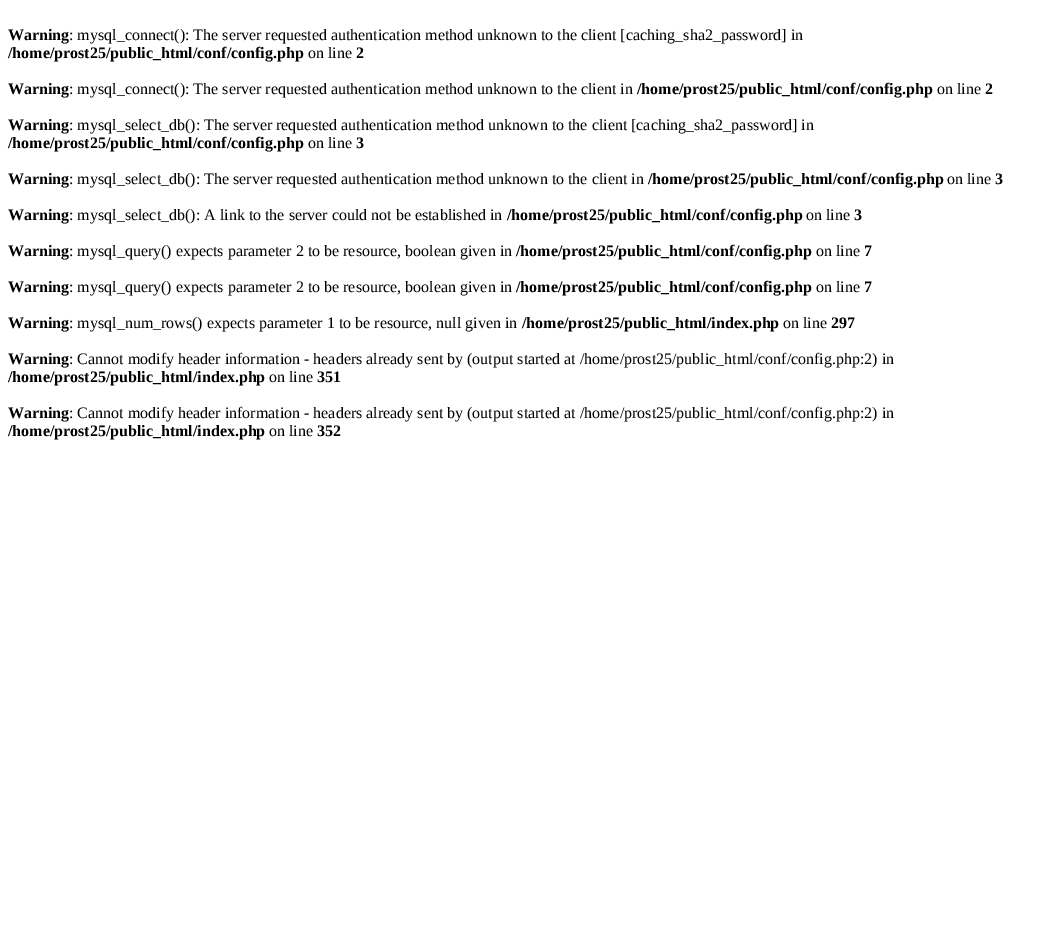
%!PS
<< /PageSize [1045 930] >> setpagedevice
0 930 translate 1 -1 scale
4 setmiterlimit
1 setgray
0 0 1045 930 rectfill
/LiberationSerif-Bold [16 0 0 -16 0 0] selectfont
0 setgray
8 40 moveto (Warning) show
/LiberationSerif-Regular [16 0 0 -16 0 0] selectfont
69 40 moveto (: mysql_connect\(\): The server requested authentication method unknown to the client [caching_sha2_password] in) show
/LiberationSerif-Bold [16 0 0 -16 0 0] selectfont
8 58 moveto (/home/prost25/public_html/conf/config.php) show
/LiberationSerif-Regular [16 0 0 -16 0 0] selectfont
308 58 moveto (on line) show
/LiberationSerif-Bold [16 0 0 -16 0 0] selectfont
356 58 moveto (2) show
8 94 moveto (Warning) show
/LiberationSerif-Regular [16 0 0 -16 0 0] selectfont
69 94 moveto (: mysql_connect\(\): The server requested authentication method unknown to the client in) show
/LiberationSerif-Bold [16 0 0 -16 0 0] selectfont
637 94 moveto (/home/prost25/public_html/conf/config.php) show
/LiberationSerif-Regular [16 0 0 -16 0 0] selectfont
937 94 moveto (on line) show
/LiberationSerif-Bold [16 0 0 -16 0 0] selectfont
985 94 moveto (2) show
8 130 moveto (Warning) show
/LiberationSerif-Regular [16 0 0 -16 0 0] selectfont
69 130 moveto (: mysql_select_db\(\): The server requested authentication method unknown to the client [caching_sha2_password] in) show
/LiberationSerif-Bold [16 0 0 -16 0 0] selectfont
8 148 moveto (/home/prost25/public_html/conf/config.php) show
/LiberationSerif-Regular [16 0 0 -16 0 0] selectfont
308 148 moveto (on line) show
/LiberationSerif-Bold [16 0 0 -16 0 0] selectfont
356 148 moveto (3) show
8 184 moveto (Warning) show
/LiberationSerif-Regular [16 0 0 -16 0 0] selectfont
69 184 moveto (: mysql_select_db\(\): The server requested authentication method unknown to the client in) show
/LiberationSerif-Bold [16 0 0 -16 0 0] selectfont
648 184 moveto (/home/prost25/public_html/conf/config.php) show
/LiberationSerif-Regular [16 0 0 -16 0 0] selectfont
947 184 moveto (on line) show
/LiberationSerif-Bold [16 0 0 -16 0 0] selectfont
995 184 moveto (3) show
8 220 moveto (Warning) show
/LiberationSerif-Regular [16 0 0 -16 0 0] selectfont
69 220 moveto (: mysql_select_db\(\): A link to the server could not be established in) show
/LiberationSerif-Bold [16 0 0 -16 0 0] selectfont
507 220 moveto (/home/prost25/public_html/conf/config.php) show
/LiberationSerif-Regular [16 0 0 -16 0 0] selectfont
806 220 moveto (on line) show
/LiberationSerif-Bold [16 0 0 -16 0 0] selectfont
854 220 moveto (3) show
8 256 moveto (Warning) show
/LiberationSerif-Regular [16 0 0 -16 0 0] selectfont
69 256 moveto (: mysql_query\(\) expects parameter 2 to be resource, boolean given in) show
/LiberationSerif-Bold [16 0 0 -16 0 0] selectfont
516 256 moveto (/home/prost25/public_html/conf/config.php) show
/LiberationSerif-Regular [16 0 0 -16 0 0] selectfont
816 256 moveto (on line) show
/LiberationSerif-Bold [16 0 0 -16 0 0] selectfont
864 256 moveto (7) show
8 292 moveto (Warning) show
/LiberationSerif-Regular [16 0 0 -16 0 0] selectfont
69 292 moveto (: mysql_query\(\) expects parameter 2 to be resource, boolean given in) show
/LiberationSerif-Bold [16 0 0 -16 0 0] selectfont
516 292 moveto (/home/prost25/public_html/conf/config.php) show
/LiberationSerif-Regular [16 0 0 -16 0 0] selectfont
816 292 moveto (on line) show
/LiberationSerif-Bold [16 0 0 -16 0 0] selectfont
864 292 moveto (7) show
8 328 moveto (Warning) show
/LiberationSerif-Regular [16 0 0 -16 0 0] selectfont
69 328 moveto (: mysql_num_rows\(\) expects parameter 1 to be resource, null given in) show
/LiberationSerif-Bold [16 0 0 -16 0 0] selectfont
522 328 moveto (/home/prost25/public_html/index.php) show
/LiberationSerif-Regular [16 0 0 -16 0 0] selectfont
783 328 moveto (on line) show
/LiberationSerif-Bold [16 0 0 -16 0 0] selectfont
831 328 moveto (297) show
8 364 moveto (Warning) show
/LiberationSerif-Regular [16 0 0 -16 0 0] selectfont
69 364 moveto (: Cannot modify header information - headers already sent by \(output started at /home/prost25/public_html/conf/config.php:2\) in) show
/LiberationSerif-Bold [16 0 0 -16 0 0] selectfont
8 382 moveto (/home/prost25/public_html/index.php) show
/LiberationSerif-Regular [16 0 0 -16 0 0] selectfont
269 382 moveto (on line) show
/LiberationSerif-Bold [16 0 0 -16 0 0] selectfont
317 382 moveto (351) show
8 418 moveto (Warning) show
/LiberationSerif-Regular [16 0 0 -16 0 0] selectfont
69 418 moveto (: Cannot modify header information - headers already sent by \(output started at /home/prost25/public_html/conf/config.php:2\) in) show
/LiberationSerif-Bold [16 0 0 -16 0 0] selectfont
8 436 moveto (/home/prost25/public_html/index.php) show
/LiberationSerif-Regular [16 0 0 -16 0 0] selectfont
269 436 moveto (on line) show
/LiberationSerif-Bold [16 0 0 -16 0 0] selectfont
317 436 moveto (352) show
showpage
